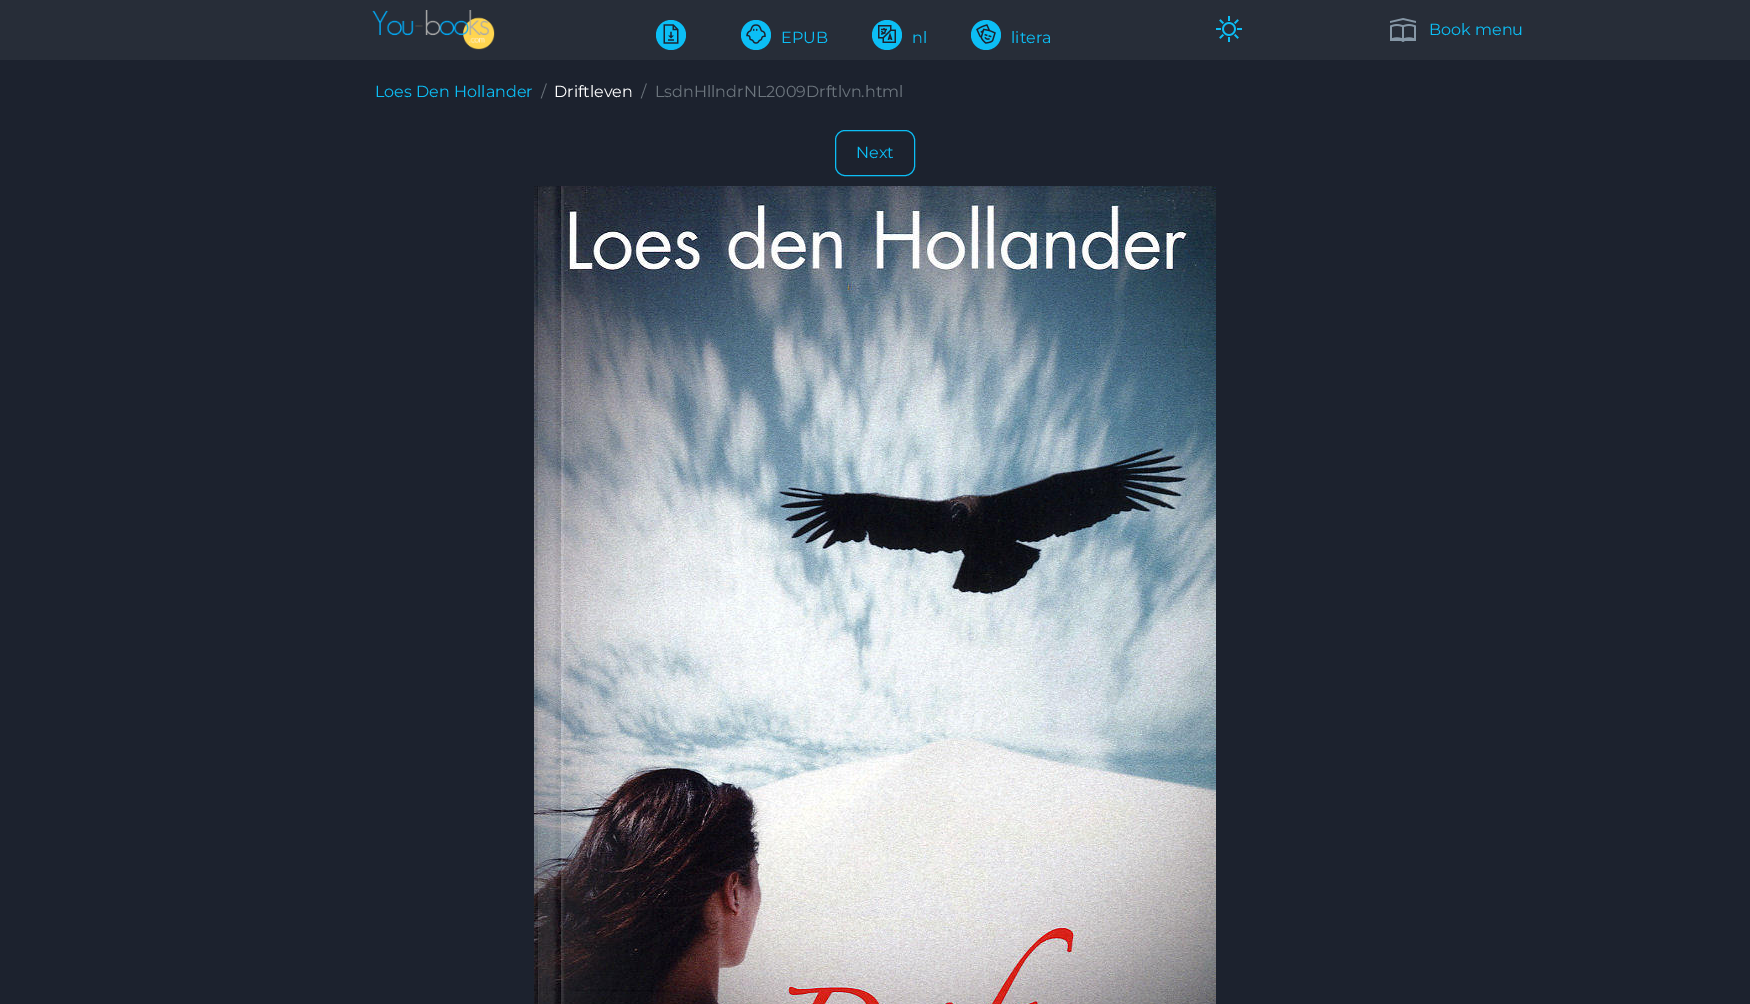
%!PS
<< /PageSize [1750 1004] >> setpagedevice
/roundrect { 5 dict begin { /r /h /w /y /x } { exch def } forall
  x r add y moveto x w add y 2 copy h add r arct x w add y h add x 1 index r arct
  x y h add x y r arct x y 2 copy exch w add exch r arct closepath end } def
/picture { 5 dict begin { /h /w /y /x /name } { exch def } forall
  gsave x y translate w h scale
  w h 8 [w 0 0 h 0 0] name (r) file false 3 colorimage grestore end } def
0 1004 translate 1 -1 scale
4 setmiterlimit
0.11 0.133 0.18 setrgbcolor
0 0 1750 1004 rectfill
0.153 0.176 0.22 setrgbcolor
0 0 1750 60 rectfill
(img1.rgb) 372 10 123 40 picture
(img2.rgb) 1216 16 26 26 picture
(img3.rgb) 1390 18 26 24 picture
/Montserrat-Regular [16 0 0 -16 0 0] selectfont
0.047 0.745 0.961 setrgbcolor
1429 35 moveto (Book menu) show
newpath 671 35 15 0 360 arc closepath fill
(img4.rgb) 663 24 16 20 picture
newpath 756 35 15 0 360 arc closepath fill
(img5.rgb) 746 24 20 20 picture
781 43 moveto (EPUB) show
newpath 887 35 15 0 360 arc closepath fill
(img6.rgb) 878 25 18 18 picture
912 43 moveto (nl) show
newpath 986 35 15 0 360 arc closepath fill
(img7.rgb) 976 24 20 20 picture
1011 43 moveto (litera) show
375 97 moveto (Loes Den Hollander) show
0.424 0.459 0.49 setrgbcolor
541 97 moveto (/) show
1 setgray
554 97 moveto (Driftleven) show
0.424 0.459 0.49 setrgbcolor
641 97 moveto (/) show
655 97 moveto (LsdnHllndrNL2009Drftlvn.html) show
0.047 0.745 0.961 setrgbcolor
835.5 130.5 79 45 9.5 roundrect stroke
856 158 moveto (Next) show
(img8.rgb) 534 186 682 818 picture
showpage
